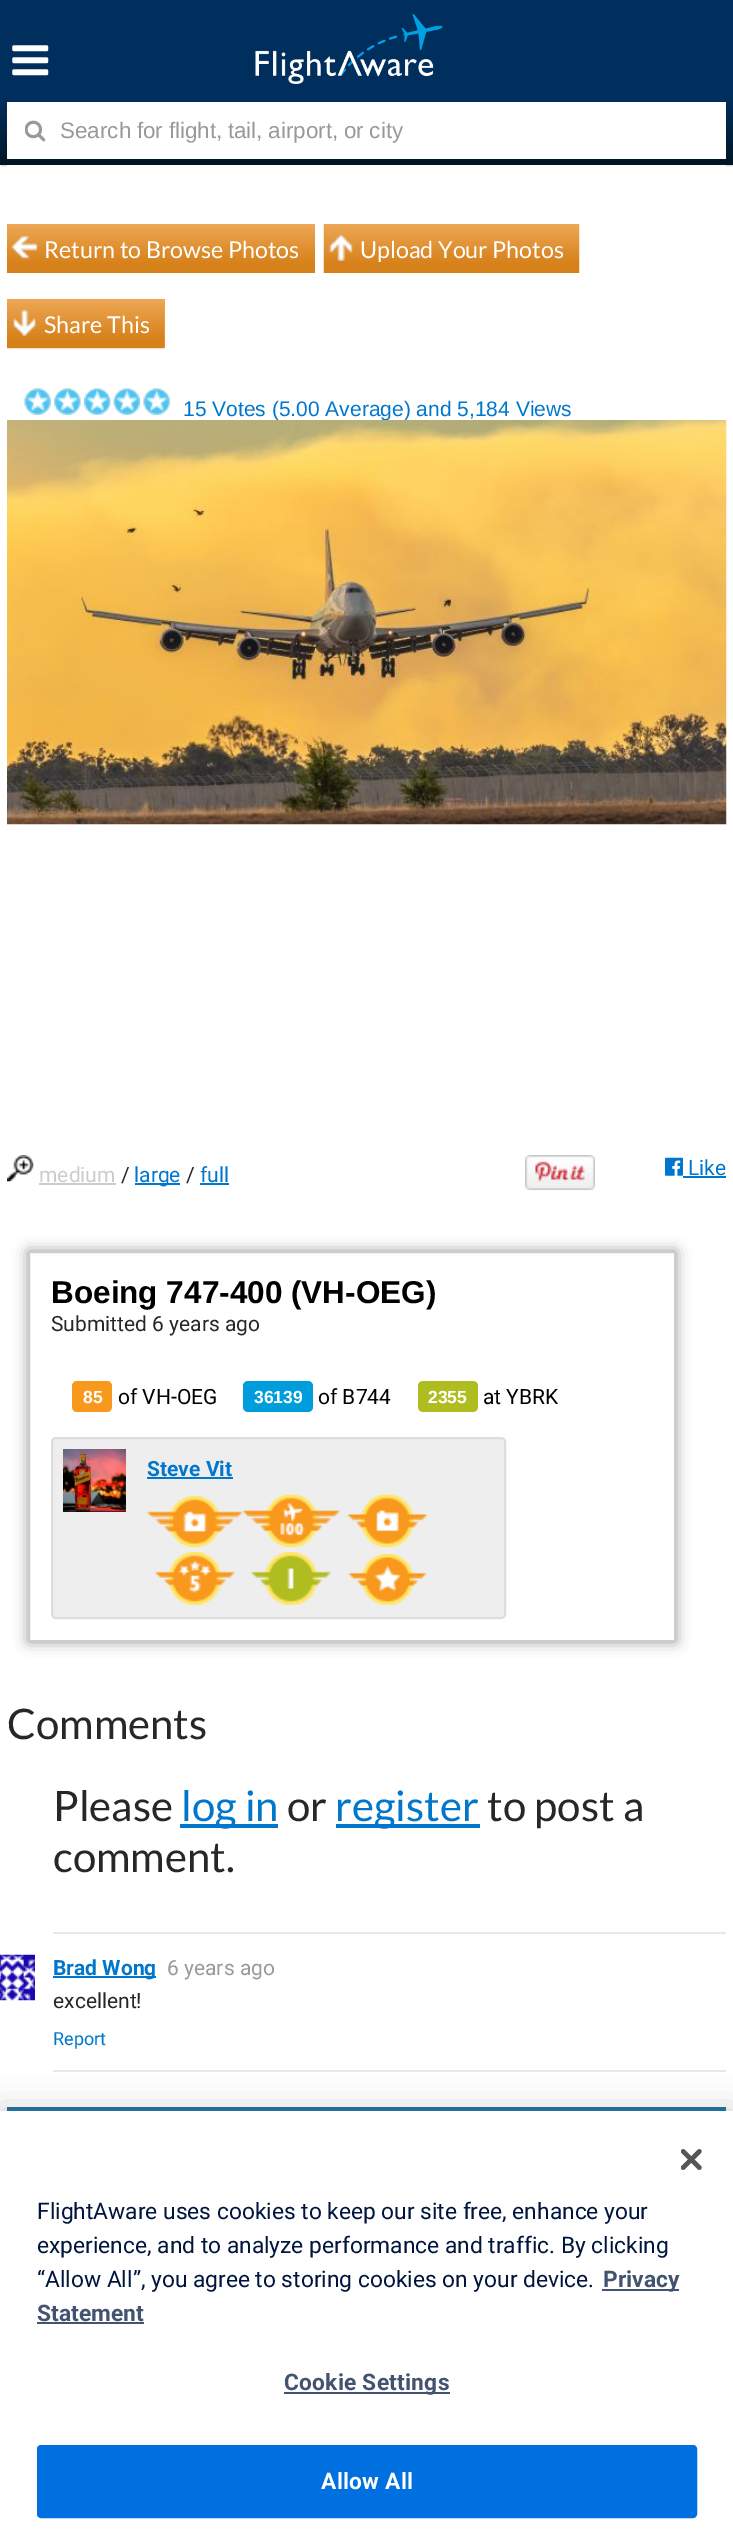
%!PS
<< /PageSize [733 2546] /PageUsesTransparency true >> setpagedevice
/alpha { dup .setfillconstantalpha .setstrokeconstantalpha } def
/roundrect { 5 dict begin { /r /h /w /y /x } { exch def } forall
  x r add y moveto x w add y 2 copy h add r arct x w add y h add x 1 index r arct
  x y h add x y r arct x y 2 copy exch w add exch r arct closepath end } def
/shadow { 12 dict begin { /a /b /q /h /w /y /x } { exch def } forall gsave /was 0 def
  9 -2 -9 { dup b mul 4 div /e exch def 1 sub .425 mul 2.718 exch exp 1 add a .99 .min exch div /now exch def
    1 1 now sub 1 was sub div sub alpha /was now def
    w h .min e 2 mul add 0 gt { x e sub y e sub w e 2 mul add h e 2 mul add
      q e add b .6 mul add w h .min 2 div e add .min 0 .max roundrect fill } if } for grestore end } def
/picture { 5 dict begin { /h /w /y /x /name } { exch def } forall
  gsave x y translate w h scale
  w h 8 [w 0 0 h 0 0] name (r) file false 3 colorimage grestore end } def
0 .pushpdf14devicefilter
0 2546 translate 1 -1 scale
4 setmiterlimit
1 setgray
0 0 733 2546 rectfill
0.533 setgray
2 4 730 161 0 1 1 shadow
gsave newpath 0 0 moveto 733 0 lineto 733 165 lineto 0 165 lineto closepath clip newpath
<< /ShadingType 2 /ColorSpace /DeviceRGB /Coords [367 0 367 165] /Extend [true true] /Function << /FunctionType 3 /Domain [0 1] /Functions [<< /FunctionType 2 /Domain [0 1] /C0 [0 0.184 0.365] /C1 [0 0.184 0.365] /N 1 >> << /FunctionType 2 /Domain [0 1] /C0 [0 0.184 0.365] /C1 [0.008 0.086 0.141] /N 1 >>] /Bounds [0.6] /Encode [0 1 0 1] >> >> shfill grestore
(img1.rgb) 12 45 37 31 picture
(img2.rgb) 255 14 188 70 picture
1 setgray
7 102 719 57 rectfill
(img3.rgb) 25 120 21 22 picture
/LiberationSans-Regular [22.4 0 0 -22.4 0 0] selectfont
0.6 setgray
60 138 moveto -0.5 0 32 (Search for flight, tail, airport, or city) widthshow
1 setgray
7 165 719 2 rectfill
0.929 0.651 0.325 setrgbcolor
7 224 308 4 rectfill
(img4.rgb) 7 228 308 45 picture
(img5.rgb) 11 235 27 25 picture
/Lato-Regular [23.25 0 0 -23.25 0 0] selectfont
1 setgray
44 258 moveto (Return to Browse Photos) show
(img6.rgb) 323 224 257 49 picture
(img7.rgb) 328 234 25 27 picture
360 258 moveto (Upload Your Photos) show
0.929 0.651 0.325 setrgbcolor
7 299 158 49 rectfill
(img8.rgb) 7 303 158 46 picture
(img9.rgb) 12 309 24 27 picture
1 setgray
44 333 moveto (Share This) show
(img10.rgb) 24 388 27 27 picture
(img11.rgb) 54 388 27 27 picture
(img12.rgb) 84 388 27 27 picture
(img13.rgb) 113 388 27 27 picture
(img14.rgb) 143 388 27 27 picture
/LiberationSans-Regular [21 0 0 -21 0 0] selectfont
0 0.467 0.8 setrgbcolor
183 416 moveto (15 Votes \(5.00 Average\) and 5,184 Views) show
(img15.rgb) 7 420 720 405 picture
(img16.rgb) 7 1155 27 27 picture
/Roboto-Regular [21 0 0 -21 0 0] selectfont
0.8 setgray
39 1182 moveto (medium) show
39 1183 77 2 rectfill
0.153 setgray
121 1182 moveto (/) show
0 0.467 0.8 setrgbcolor
135 1183 45 2 rectfill
134 1182 moveto (large) show
0.153 setgray
186 1182 moveto (/) show
0 0.467 0.8 setrgbcolor
200 1182 moveto (full) show
200 1183 29 2 rectfill
(img17.rgb) 525 1155 70 35 picture
(img18.rgb) 665 1157 18 19 picture
688 1175 moveto (Like) show
683 1176 43 2 rectfill
gsave
newpath 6 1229 moveto 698 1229 lineto 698 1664 lineto 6 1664 lineto closepath 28 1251 moveto 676 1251 lineto 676 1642 lineto 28 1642 lineto closepath eoclip newpath
0.6 setgray
28 1251 648 391 0 7 1 shadow
grestore
0.8 setgray
2 setlinewidth
29 1252 646 389 rectstroke
/LiberationSans-Bold [31.5 0 0 -31.5 0 0] selectfont
0 setgray
51 1303 moveto (Boeing 747-400 \(VH-OEG\)) show
/Roboto-Regular [21 0 0 -21 0 0] selectfont
0.153 setgray
51 1331 moveto (Submitted 6 years ago) show
0.973 0.596 0.114 setrgbcolor
72 1381 40 31 5 roundrect fill
/LiberationSans-Bold [17.5 0 0 -17.5 0 0] selectfont
1 setgray
83 1403 moveto (85) show
/Roboto-Regular [21 0 0 -21 0 0] selectfont
0 setgray
118 1404 moveto (of VH-OEG) show
0 0.616 0.863 setrgbcolor
243 1381 70 31 5 roundrect fill
/LiberationSans-Bold [17.5 0 0 -17.5 0 0] selectfont
1 setgray
254 1403 moveto (36139) show
/Roboto-Regular [21 0 0 -21 0 0] selectfont
0 setgray
318 1404 moveto (of B744) show
0.686 0.741 0.129 setrgbcolor
418 1381 60 31 5 roundrect fill
/LiberationSans-Bold [17.5 0 0 -17.5 0 0] selectfont
1 setgray
428 1403 moveto (2355) show
/Roboto-Regular [21 0 0 -21 0 0] selectfont
0 setgray
483 1404 moveto (at YBRK) show
0.933 setgray
52 1438 453 180 4 roundrect gsave fill grestore
0.867 setgray
stroke
(img19.rgb) 63 1449 63 63 picture
/Roboto-Bold [21 0 0 -21 0 0] selectfont
0 0.467 0.8 setrgbcolor
147 1476 moveto (Steve Vit) show
147 1477 86 2 rectfill
(img20.rgb) 147 1496 96 51 picture
(img21.rgb) 243 1494 97 53 picture
(img22.rgb) 346 1494 82 53 picture
(img23.rgb) 155 1552 80 53 picture
(img24.rgb) 250 1552 81 53 picture
(img25.rgb) 348 1554 80 51 picture
/Lato-Regular [42 0 0 -42 0 0] selectfont
0.153 setgray
7 1739 moveto (Comments) show
0.91 setgray
53 1932 673 2 rectfill
0.153 setgray
53 1821 moveto (Please) show
0 0.467 0.8 setrgbcolor
180 1824 98 4 rectfill
181 1821 moveto (log in) show
0.153 setgray
287 1821 moveto (or) show
0 0.467 0.8 setrgbcolor
336 1824 144 4 rectfill
335 1821 moveto (register) show
0.153 setgray
487 1821 moveto (to post a) show
53 1872 moveto (comment.) show
(img26.rgb) 0 1954 35 47 picture
0 0.467 0.8 setrgbcolor
53 1976 103 2 rectfill
/Roboto-Bold [21 0 0 -21 0 0] selectfont
53 1975 moveto (Brad Wong) show
/Roboto-Regular [21 0 0 -21 0 0] selectfont
0.6 setgray
167 1975 moveto (6 years ago) show
0.153 setgray
53 2008 moveto (excellent!) show
0.91 setgray
53 2070 673 2 rectfill
/Roboto-Regular [18 0 0 -18 0 0] selectfont
0 0.467 0.8 setrgbcolor
53 2045 moveto (Report) show
gsave newpath 7 2107 moveto 726 2107 lineto 726 2111 lineto 7 2111 lineto closepath clip newpath
<< /ShadingType 2 /ColorSpace /DeviceRGB /Coords [7 2107 7 2209] /Extend [true true] /Function << /FunctionType 2 /Domain [0 1] /C0 [0.149 0.482 0.682] /C1 [0.227 0.373 0.592] /N 1 >> >> shfill grestore
0 setgray
0 2111 733 435 0 16 0.2 shadow
1 setgray
0 2111 733 435 rectfill
(img27.rgb) 681 2149 21 21 picture
/Roboto-Regular [22.75 0 0 -22.75 0 0] selectfont
0 0.082 0.239 setrgbcolor
37 2219 moveto (FlightAware uses cookies to keep our site free, enhance your) show
37 2253 moveto (experience, and to analyze performance and traffic. By clicking) show
37 2287 moveto (“Allow All”, you agree to storing cookies on your device.) show
0.259 0.322 0.435 setrgbcolor
602 2289 77 2 rectfill
/Roboto-Bold [22.75 0 0 -22.75 0 0] selectfont
603 2287 moveto (Privacy) show
37 2321 moveto (Statement) show
37 2322 107 2 rectfill
284 2392 166 2 rectfill
284 2390 moveto 0.25 0 (Cookie Settings) ashow
0 0.439 0.878 setrgbcolor
38 2446 658 71 3 roundrect gsave fill grestore
stroke
1 setgray
321 2489 moveto 0.25 0 (Allow All) ashow
.poppdf14devicefilter showpage
